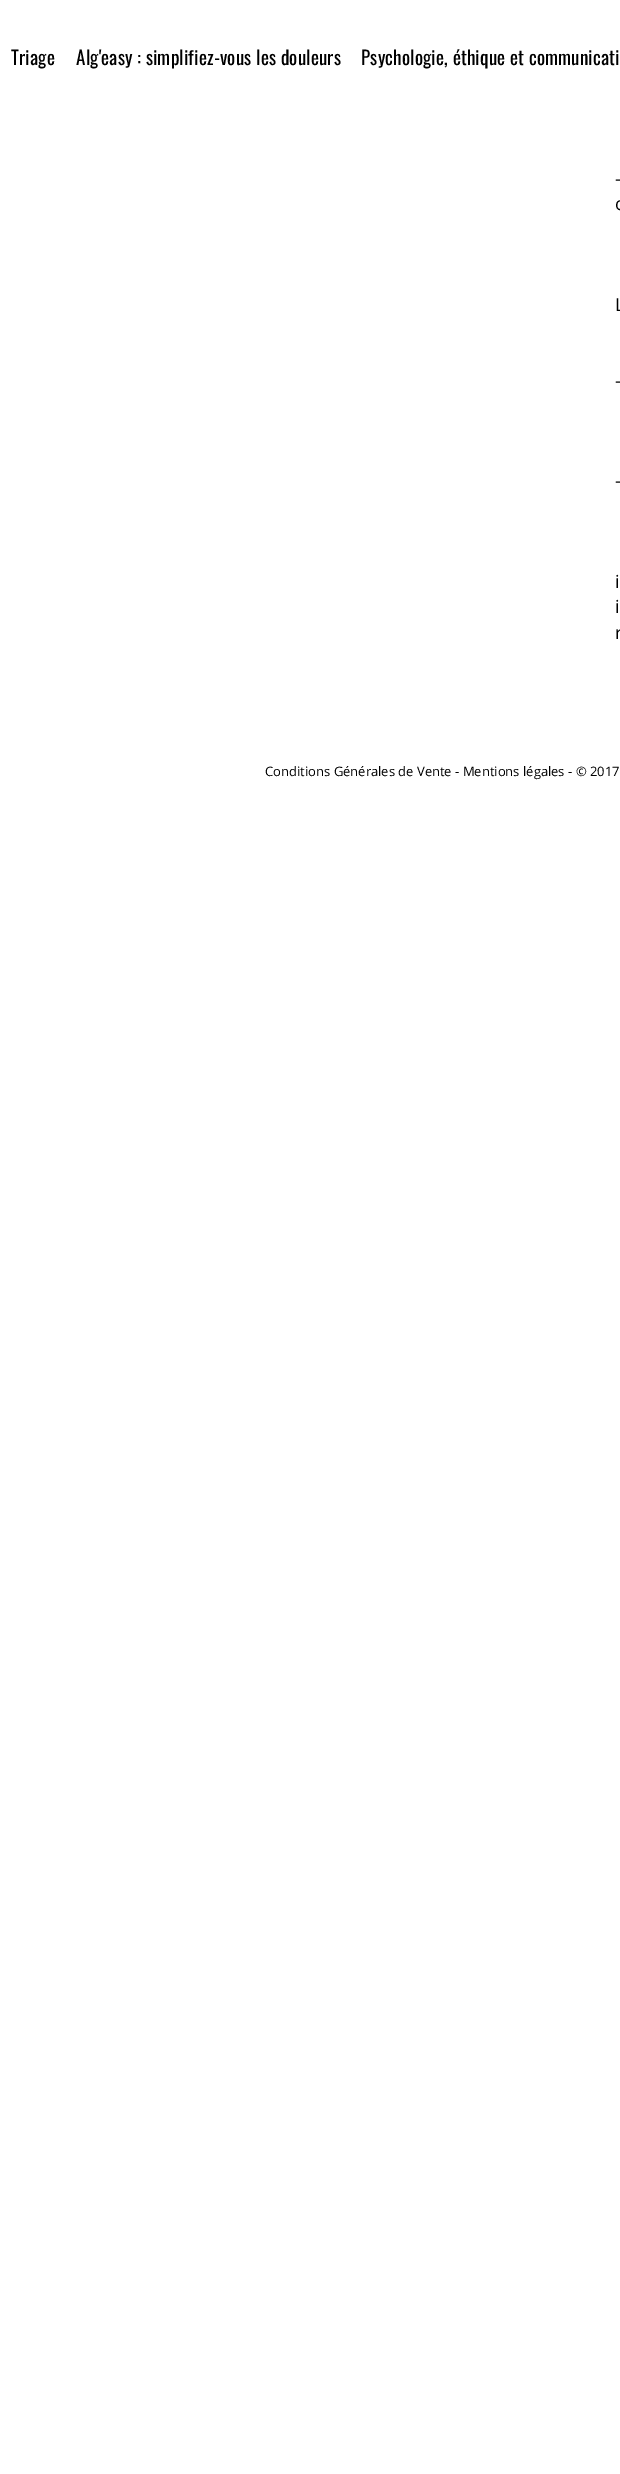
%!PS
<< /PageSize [620 2474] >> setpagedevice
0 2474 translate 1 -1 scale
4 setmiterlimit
1 setgray
0 0 620 2474 rectfill
/Oswald-Regular [19 0 0 -19 0 0] selectfont
0 setgray
11 65 moveto 0.2 0 (Triage) ashow
76 65 moveto 0.2 0 (Alg'easy : simplifiez-vous les douleurs) ashow
361 65 moveto 0.2 0 (Psychologie, éthique et communicati) ashow
/OpenSans-Regular [18 0 0 -18 0 0] selectfont
615 185 moveto (-) show
615 210 moveto (c) show
615 311 moveto (L) show
615 387 moveto (-) show
615 487 moveto (-) show
615 588 moveto (i) show
615 613 moveto (i) show
615 639 moveto (r) show
/OpenSans-Regular [13 0 0 -13 0 0] selectfont
265 776 moveto (Conditions Générales de Vente - Mentions légales - © 2017) show
showpage
